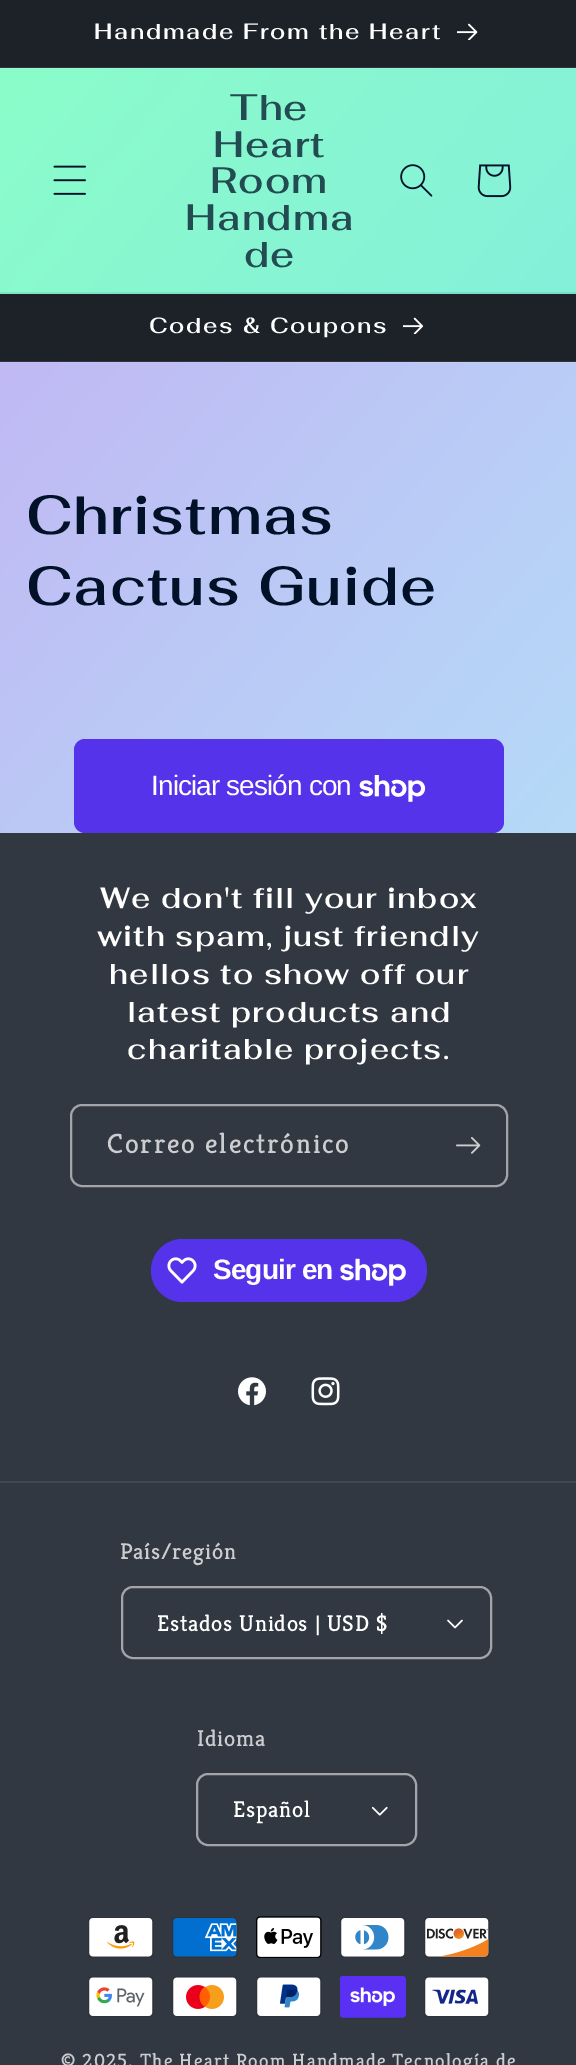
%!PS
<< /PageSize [576 2065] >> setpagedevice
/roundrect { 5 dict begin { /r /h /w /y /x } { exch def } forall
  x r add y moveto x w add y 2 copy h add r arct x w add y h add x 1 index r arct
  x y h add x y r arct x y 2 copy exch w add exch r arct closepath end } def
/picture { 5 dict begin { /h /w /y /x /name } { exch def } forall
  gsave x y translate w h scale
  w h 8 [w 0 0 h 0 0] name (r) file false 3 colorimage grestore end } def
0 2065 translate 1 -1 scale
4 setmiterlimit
1 setgray
0 0 576 2065 rectfill
gsave newpath 0 363 moveto 576 363 lineto 576 833 lineto 0 833 lineto closepath clip newpath
<< /ShadingType 2 /ColorSpace /DeviceRGB /Coords [-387 445 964 1620] /Extend [true true] /Function << /FunctionType 2 /Domain [0 1] /C0 [0.773 0.682 0.953] /C1 [0.659 1 0.984] /N 1 >> >> shfill grestore
gsave newpath 0 362 moveto 576 362 lineto 576 363 lineto 0 363 lineto closepath clip newpath
<< /ShadingType 2 /ColorSpace /DeviceRGB /Coords [-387 445 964 1620] /Extend [true true] /Function << /FunctionType 2 /Domain [0 1] /C0 [0.792 0.706 0.957] /C1 [0.686 1 0.984] /N 1 >> >> shfill grestore
0.11 0.133 0.157 setrgbcolor
0 0 576 67 rectfill
0.18 0.204 0.224 setrgbcolor
0 67 576 1 rectfill
/Fahkwang-SemiBold [22 0 0 -22 0 0] selectfont
1 setgray
94 39 moveto 1.75 0 (Handmade From the Heart) ashow
(img1.rgb) 457 23 21 17 picture
gsave newpath 0 69 moveto 576 69 lineto 576 292 lineto 0 292 lineto closepath clip newpath
<< /ShadingType 2 /ColorSpace /DeviceRGB /Coords [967 1601 -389 464] /Extend [true true] /Function << /FunctionType 3 /Domain [0 1] /Functions [<< /FunctionType 2 /Domain [0 1] /C0 [0.475 0.839 0.973] /C1 [0.475 0.839 0.973] /N 1 >> << /FunctionType 2 /Domain [0 1] /C0 [0.475 0.839 0.973] /C1 [0.545 0.996 0.788] /N 1 >>] /Bounds [0.01] /Encode [0 1 0 1] >> >> shfill grestore
gsave newpath 0 68 moveto 576 68 lineto 576 69 lineto 0 69 lineto closepath clip newpath
<< /ShadingType 2 /ColorSpace /DeviceRGB /Coords [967 1601 -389 464] /Extend [true true] /Function << /FunctionType 3 /Domain [0 1] /Functions [<< /FunctionType 2 /Domain [0 1] /C0 [0.518 0.851 0.976] /C1 [0.518 0.851 0.976] /N 1 >> << /FunctionType 2 /Domain [0 1] /C0 [0.518 0.851 0.976] /C1 [0.58 0.996 0.804] /N 1 >>] /Bounds [0.01] /Encode [0 1 0 1] >> >> shfill grestore
gsave newpath 0 292 moveto 576 292 lineto 576 294 lineto 0 294 lineto closepath clip newpath
<< /ShadingType 2 /ColorSpace /DeviceRGB /Coords [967 1601 -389 464] /Extend [true true] /Function << /FunctionType 3 /Domain [0 1] /Functions [<< /FunctionType 2 /Domain [0 1] /C0 [0.435 0.776 0.906] /C1 [0.435 0.776 0.906] /N 1 >> << /FunctionType 2 /Domain [0 1] /C0 [0.435 0.776 0.906] /C1 [0.502 0.922 0.737] /N 1 >>] /Bounds [0.01] /Encode [0 1 0 1] >> >> shfill grestore
(img2.rgb) 53 165 33 30 picture
/Fahkwang-SemiBold [36.75 0 0 -36.75 0 0] selectfont
0.133 0.294 0.322 setrgbcolor
230 120 moveto 1.1 0 (The) ashow
213 157 moveto 1.1 0 (Heart) ashow
210 193 moveto 1.1 0 (Room) ashow
185 230 moveto 1.1 0 (Handma) ashow
244 267 moveto 1.1 0 (de) ashow
(img3.rgb) 400 164 33 33 picture
(img4.rgb) 477 164 35 34 picture
0.11 0.133 0.157 setrgbcolor
0 294 576 67 rectfill
0.18 0.204 0.224 setrgbcolor
0 361 576 1 rectfill
/Fahkwang-SemiBold [22 0 0 -22 0 0] selectfont
1 setgray
149 333 moveto 1.75 0 (Codes & Coupons) ashow
(img5.rgb) 403 317 21 17 picture
/Fahkwang-SemiBold [55 0 0 -55 0 0] selectfont
0 0.067 0.157 setrgbcolor
26 534 moveto 1.1 0 (Christmas) ashow
26 605 moveto 1.1 0 (Cactus Guide) ashow
0.329 0.2 0.922 setrgbcolor
74 739 430 94 11 roundrect fill
/LiberationSans-Regular [28 0 0 -28 0 0] selectfont
1 setgray
151 795 moveto -0.9 0 (Iniciar sesión con) ashow
(img6.rgb) 359 775 67 27 picture
0.196 0.22 0.255 setrgbcolor
0 833 576 1232 rectfill
/Fahkwang-SemiBold [29.4 0 0 -29.4 0 0] selectfont
1 setgray
100 908 moveto 1.1 0 (We don't fill your inbox) ashow
97 946 moveto 1.1 0 (with spam, just friendly) ashow
109 984 moveto 1.1 0 (hellos to show off our) ashow
127 1022 moveto 1.1 0 (latest products and) ashow
127 1059 moveto 1.1 0 (charitable projects.) ashow
0.639 0.647 0.667 setrgbcolor
2 setlinewidth
71 1105 436 81 11 roundrect stroke
/Kreon-Regular [28 0 0 -28 0 0] selectfont
0.8 0.804 0.816 setrgbcolor
107 1153 moveto 1.75 0 (Correo electrónico) ashow
(img7.rgb) 456 1137 25 17 picture
0.329 0.2 0.922 setrgbcolor
151 1239 276 63 31.5 roundrect fill
(img8.rgb) 167 1257 30 27 picture
/LiberationSans-Bold [28 0 0 -28 0 0] selectfont
1 setgray
213 1279 moveto -0.9 0 (Seguir en) ashow
(img9.rgb) 340 1258 66 28 picture
(img10.rgb) 238 1377 28 29 picture
(img11.rgb) 311 1377 29 29 picture
0.259 0.282 0.314 setrgbcolor
0 1481 576 2 rectfill
/Kreon-Regular [22.75 0 0 -22.75 0 0] selectfont
0.8 0.804 0.816 setrgbcolor
120 1559 moveto 0.7 0 (País/región) ashow
(img12.rgb) 447 1619 16 10 picture
0.639 0.647 0.667 setrgbcolor
122 1587 369 71 11 roundrect stroke
1 setgray
157 1631 moveto 0.7 0 (Estados Unidos | USD $) ashow
0.8 0.804 0.816 setrgbcolor
197 1746 moveto 0.7 0 (Idioma) ashow
(img13.rgb) 371 1806 17 10 picture
0.639 0.647 0.667 setrgbcolor
197 1774 219 71 11 roundrect stroke
1 setgray
233 1817 moveto 0.7 0 (Español) ashow
(img14.rgb) 88 1917 66 41 picture
(img15.rgb) 172 1917 66 41 picture
(img16.rgb) 256 1916 66 42 picture
(img17.rgb) 340 1917 66 41 picture
(img18.rgb) 424 1917 66 41 picture
(img19.rgb) 88 1976 66 41 picture
(img20.rgb) 172 1976 66 41 picture
(img21.rgb) 256 1976 66 41 picture
(img22.rgb) 340 1976 66 42 picture
(img23.rgb) 424 1976 66 41 picture
/Kreon-Regular [19.25 0 0 -19.25 0 0] selectfont
0.8 0.804 0.816 setrgbcolor
61 2067 moveto 1.25 0 (© 2025, The Heart Room Handmade) ashow
392 2067 moveto 1.25 0 (Tecnología de) ashow
showpage
